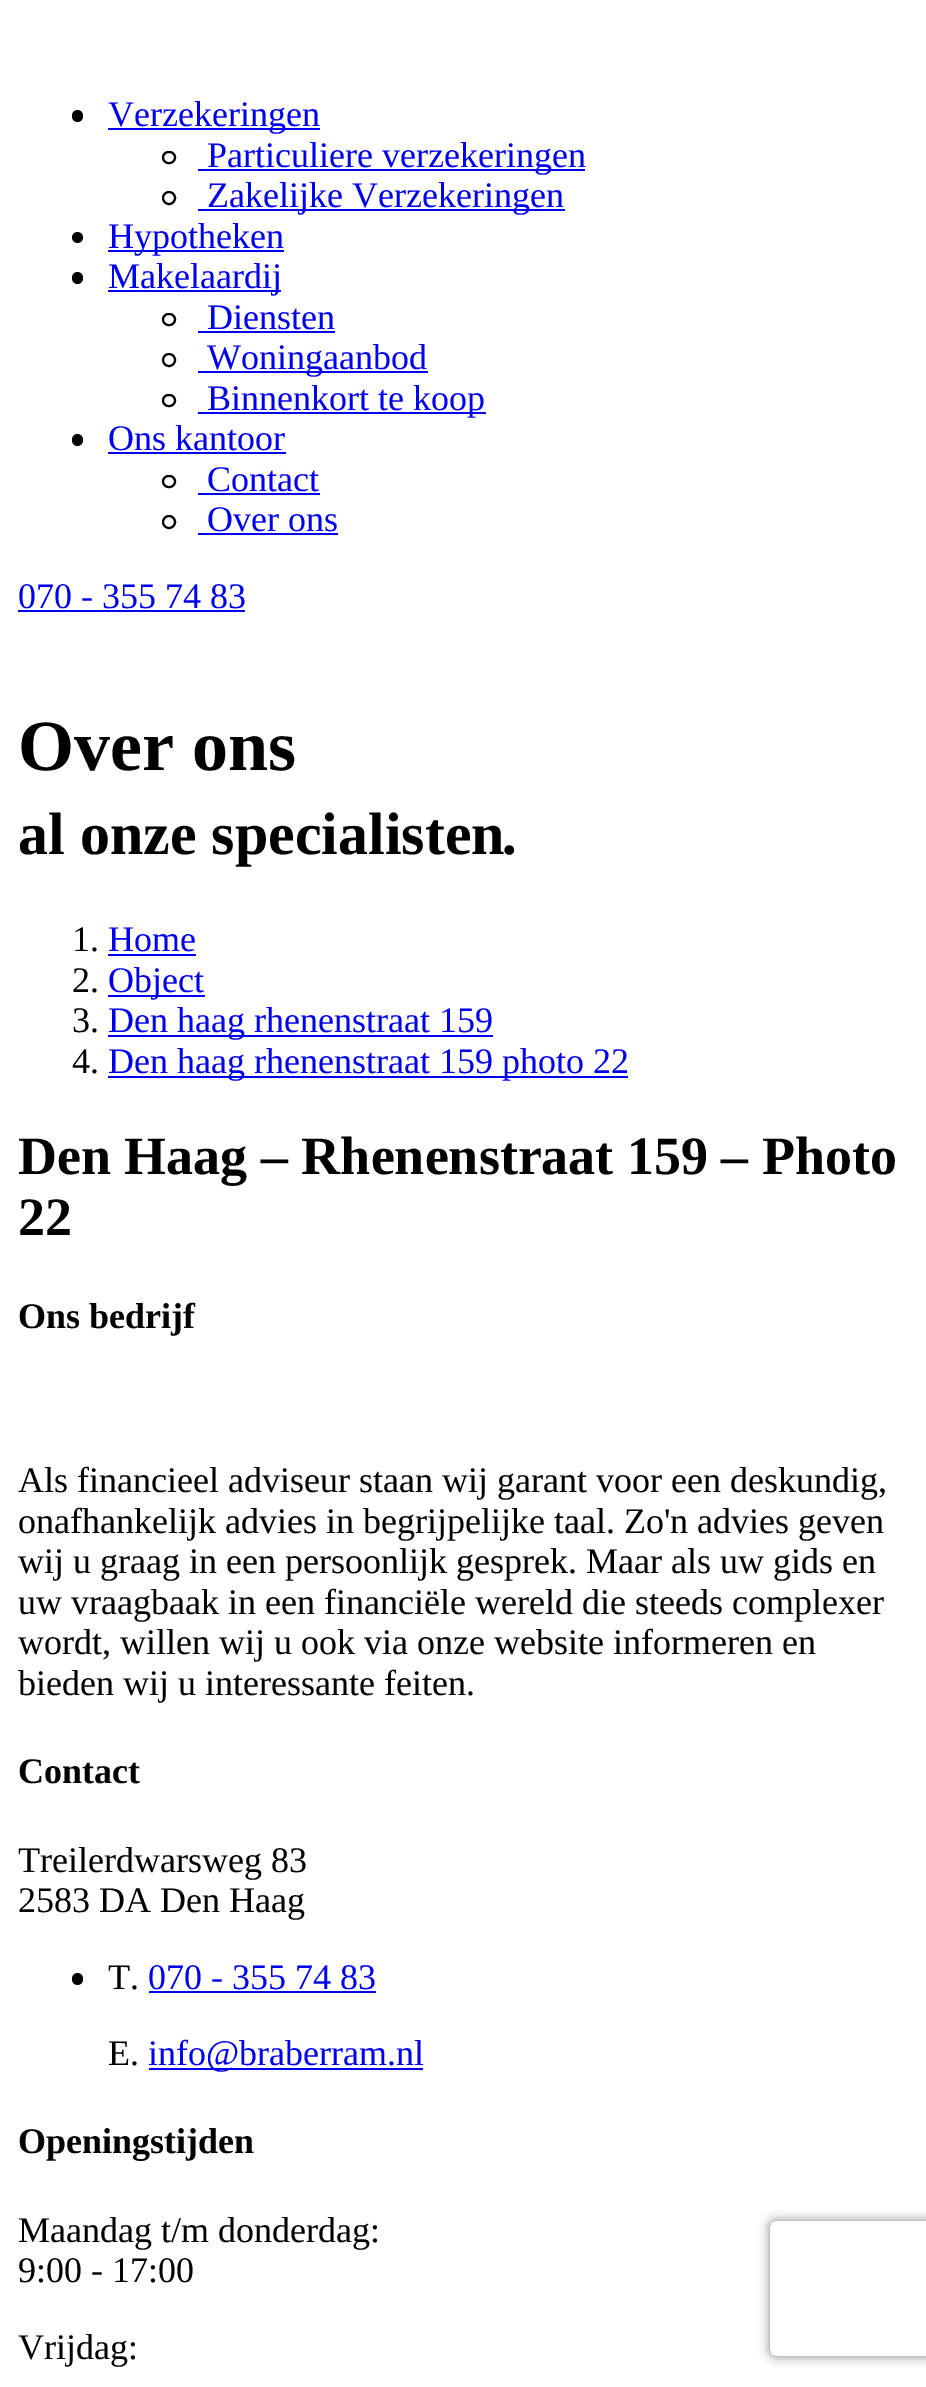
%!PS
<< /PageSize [926 2387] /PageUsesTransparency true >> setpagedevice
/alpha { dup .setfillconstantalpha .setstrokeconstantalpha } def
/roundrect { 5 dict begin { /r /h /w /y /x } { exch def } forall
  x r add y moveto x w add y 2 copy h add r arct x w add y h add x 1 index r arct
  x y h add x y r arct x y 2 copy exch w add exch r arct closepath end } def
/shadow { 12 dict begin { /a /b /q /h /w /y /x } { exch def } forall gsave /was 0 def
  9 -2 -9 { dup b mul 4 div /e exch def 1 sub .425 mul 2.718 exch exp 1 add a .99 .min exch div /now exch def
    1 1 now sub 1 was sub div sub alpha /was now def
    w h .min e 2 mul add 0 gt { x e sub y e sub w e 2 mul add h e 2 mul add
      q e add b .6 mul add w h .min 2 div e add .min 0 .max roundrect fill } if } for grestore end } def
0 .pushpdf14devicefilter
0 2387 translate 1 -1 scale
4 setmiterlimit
1 setgray
0 0 926 2387 rectfill
0 setgray
72 110 11 12 5.5 roundrect fill
0 0 0.933 setrgbcolor
108 128 212 2 rectfill
/LiberationSerif-Regular [36 0 0 -36 0 0] selectfont
108 126 moveto (Verzekeringen) show
0 setgray
2 setlinewidth
163 152 12 11 5.5 roundrect stroke
0 0 0.933 setrgbcolor
198 169 387 2 rectfill
207 167 moveto (Particuliere verzekeringen) show
0 setgray
newpath 169 198 6 0 360 arc closepath stroke
0 0 0.933 setrgbcolor
198 209 367 2 rectfill
207 207 moveto (Zakelijke Verzekeringen) show
0 setgray
newpath 77.5 237.5 5.5 0 360 arc closepath fill
0 0 0.933 setrgbcolor
108 250 176 2 rectfill
108 248 moveto (Hypotheken) show
0 setgray
72 272 11 12 5.5 roundrect fill
0 0 0.933 setrgbcolor
108 290 173 2 rectfill
108 288 moveto (Makelaardij) show
0 setgray
163 314 12 11 5.5 roundrect stroke
0 0 0.933 setrgbcolor
207 329 moveto (Diensten) show
198 331 137 2 rectfill
0 setgray
newpath 169 360 6 0 360 arc closepath stroke
0 0 0.933 setrgbcolor
198 371 230 2 rectfill
207 369 moveto (Woningaanbod) show
0 setgray
163 395 12 11 5.5 roundrect stroke
0 0 0.933 setrgbcolor
198 412 288 2 rectfill
207 410 moveto (Binnenkort te koop) show
0 setgray
72 434 11 12 5.5 roundrect fill
0 0 0.933 setrgbcolor
108 450 moveto (Ons kantoor) show
108 452 178 2 rectfill
0 setgray
163 476 12 11 5.5 roundrect stroke
0 0 0.933 setrgbcolor
207 491 moveto (Contact) show
198 493 122 2 rectfill
0 setgray
newpath 169 522 6 0 360 arc closepath stroke
0 0 0.933 setrgbcolor
207 531 moveto (Over ons) show
198 533 140 2 rectfill
18 608 moveto (070 - 355 74 83) show
18 610 227 2 rectfill
/LiberationSerif-Bold [72 0 0 -72 0 0] selectfont
0 setgray
18 770 moveto (Over ons) show
/LiberationSerif-Bold [60 0 0 -60 0 0] selectfont
18 854 moveto (al onze specialisten) show
/LiberationSerif-BoldItalic [60 0 0 -60 0 0] selectfont
504 854 moveto (.) show
/LiberationSerif-Regular [36 0 0 -36 0 0] selectfont
72 951 moveto (1.) show
0 0 0.933 setrgbcolor
108 951 moveto (Home) show
108 954 88 2 rectfill
0 setgray
72 992 moveto (2.) show
0 0 0.933 setrgbcolor
108 995 97 2 rectfill
108 992 moveto (Object) show
0 setgray
72 1032 moveto (3.) show
0 0 0.933 setrgbcolor
108 1035 385 2 rectfill
108 1032 moveto (Den haag rhenenstraat 159) show
0 setgray
72 1073 moveto (4.) show
0 0 0.933 setrgbcolor
108 1076 520 2 rectfill
108 1073 moveto (Den haag rhenenstraat 159 photo 22) show
/LiberationSerif-Bold [54 0 0 -54 0 0] selectfont
0 setgray
18 1174 moveto (Den Haag – Rhenenstraat 159 – Photo) show
18 1235 moveto (22) show
/LiberationSerif-Bold [36 0 0 -36 0 0] selectfont
18 1328 moveto (Ons bedrijf) show
/LiberationSerif-Regular [36 0 0 -36 0 0] selectfont
18 1492 moveto (Als financieel adviseur staan wij garant voor een deskundig,) show
18 1533 moveto (onafhankelijk advies in begrijpelijke taal. Zo'n advies geven) show
18 1573 moveto (wij u graag in een persoonlijk gesprek. Maar als uw gids en) show
18 1614 moveto (uw vraagbaak in een financiële wereld die steeds complexer) show
18 1654 moveto (wordt, willen wij u ook via onze website informeren en) show
18 1695 moveto (bieden wij u interessante feiten.) show
/LiberationSerif-Bold [36 0 0 -36 0 0] selectfont
18 1783 moveto (Contact) show
/LiberationSerif-Regular [36 0 0 -36 0 0] selectfont
18 1872 moveto (Treilerdwarsweg 83) show
18 1912 moveto (2583 DA Den Haag) show
72 1973 11 12 5.5 roundrect fill
108 1989 moveto (T.) show
0 0 0.933 setrgbcolor
148 1989 moveto (070 - 355 74 83) show
149 1991 227 2 rectfill
0 setgray
108 2065 moveto (E.) show
0 0 0.933 setrgbcolor
149 2068 274 2 rectfill
148 2065 moveto (info@braberram.nl) show
/LiberationSerif-Bold [36 0 0 -36 0 0] selectfont
0 setgray
18 2153 moveto (Openingstijden) show
/LiberationSerif-Regular [36 0 0 -36 0 0] selectfont
18 2242 moveto (Maandag t/m donderdag:) show
18 2282 moveto (9:00 - 17:00) show
18 2359 moveto (Vrijdag:) show
gsave
newpath 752 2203 moveto 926 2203 lineto 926 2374 lineto 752 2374 lineto closepath 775 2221 moveto 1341 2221 lineto 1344 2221 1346 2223 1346 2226 curveto 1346 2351 lineto 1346 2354 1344 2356 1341 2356 curveto 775 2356 lineto 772 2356 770 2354 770 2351 curveto 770 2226 lineto 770 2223 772 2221 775 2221 curveto closepath eoclip newpath
0.502 setgray
770 2221 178 135 5 5.5 1 shadow
grestore
.poppdf14devicefilter showpage
